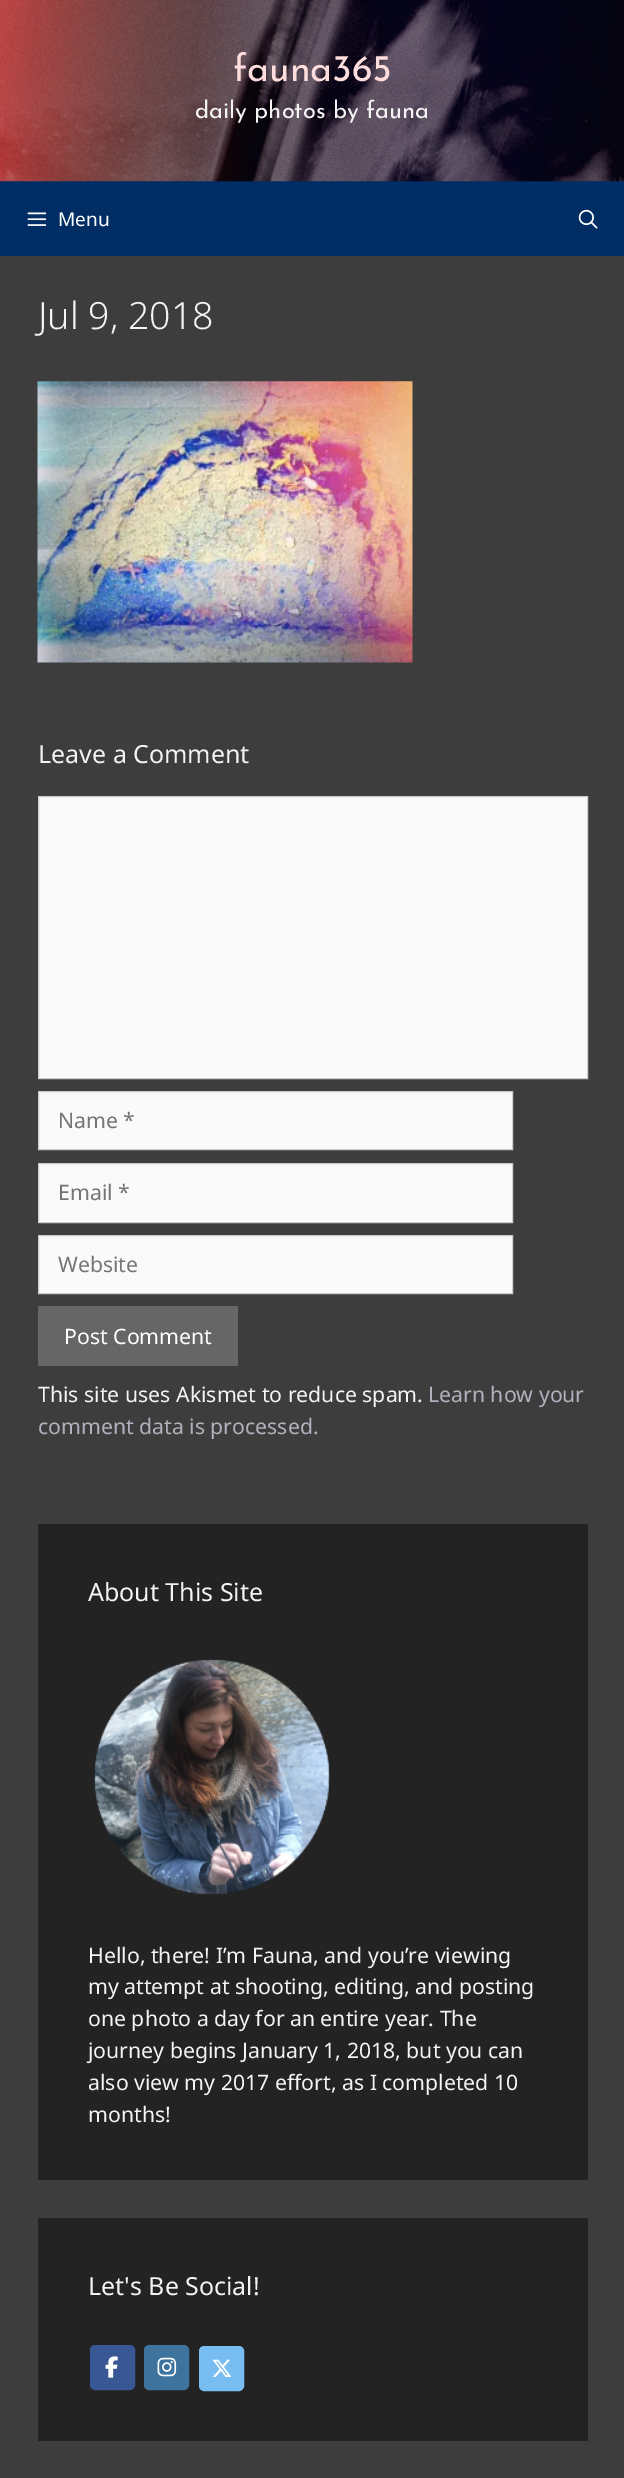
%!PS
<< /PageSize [624 2478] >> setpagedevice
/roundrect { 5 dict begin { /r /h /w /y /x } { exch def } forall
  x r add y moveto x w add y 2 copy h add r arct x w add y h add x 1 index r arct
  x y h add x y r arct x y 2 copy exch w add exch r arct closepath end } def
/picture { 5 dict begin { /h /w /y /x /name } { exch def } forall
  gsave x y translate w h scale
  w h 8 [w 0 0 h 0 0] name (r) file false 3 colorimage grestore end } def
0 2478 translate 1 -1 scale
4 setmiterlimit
0 0.176 0.392 setrgbcolor
0 0 624 2478 rectfill
(img1.rgb) 0 0 624 182 picture
/JosefinSans-Thin [37.5 0 0 -37.5 0 0] selectfont
1 0.867 0.867 setrgbcolor
233 81 moveto (fauna365) show
/JosefinSans-Thin [23.75 0 0 -23.75 0 0] selectfont
0.957 setgray
195 118 moveto (daily photos by fauna) show
(img2.rgb) 27 212 20 14 picture
/NotoSans-Regular [19 0 0 -19 0 0] selectfont
1 setgray
58 226 moveto (Menu) show
(img3.rgb) 578 209 20 20 picture
0.239 setgray
0 256 624 2222 rectfill
/NotoSans-Light [37.5 0 0 -37.5 0 0] selectfont
0.957 setgray
38 329 moveto (Jul 9, 2018) show
(img4.rgb) 37 381 376 282 picture
/NotoSans-Regular [25 0 0 -25 0 0] selectfont
38 763 moveto (Leave a Comment) show
0.98 setgray
newpath 38.5 796.5 moveto 587.5 796.5 lineto 587.5 1078.5 lineto 38.5 1078.5 lineto closepath gsave fill grestore
0.8 setgray
stroke
0.98 setgray
newpath 38.5 1091.5 moveto 512.5 1091.5 lineto 512.5 1149.5 lineto 38.5 1149.5 lineto closepath gsave fill grestore
0.8 setgray
stroke
/NotoSans-Regular [21.25 0 0 -21.25 0 0] selectfont
0.459 setgray
58 1128 moveto (Name *) show
0.98 setgray
newpath 38.5 1163.5 moveto 512.5 1163.5 lineto 512.5 1222.5 lineto 38.5 1222.5 lineto closepath gsave fill grestore
0.8 setgray
stroke
0.459 setgray
58 1200 moveto (Email *) show
0.98 setgray
newpath 38.5 1235.5 moveto 512.5 1235.5 lineto 512.5 1293.5 lineto 38.5 1293.5 lineto closepath gsave fill grestore
0.8 setgray
stroke
0.459 setgray
58 1272 moveto (Website) show
0.4 setgray
38 1306 200 60 rectfill
1 setgray
64 1344 moveto (Post Comment) show
0.957 setgray
38 1402 moveto (This site uses Akismet to reduce spam.) show
0.698 0.698 0.745 setrgbcolor
428 1402 moveto (Learn how your) show
38 1434 moveto (comment data is processed.) show
0.137 setgray
38 1524 550 656 rectfill
/NotoSans-Regular [25 0 0 -25 0 0] selectfont
0.957 setgray
88 1601 moveto (About This Site) show
(img5.rgb) 94 1659 236 236 picture
/NotoSans-Regular [21.25 0 0 -21.25 0 0] selectfont
88 1963 moveto (Hello, there! I’m Fauna, and you’re viewing) show
88 1994 moveto (my attempt at shooting, editing, and posting) show
88 2026 moveto (one photo a day for an entire year. The) show
88 2058 moveto (journey begins January 1, 2018, but you can) show
88 2090 moveto (also view my 2017 effort, as I completed 10) show
88 2122 moveto (months!) show
0.137 setgray
38 2218 550 223 rectfill
/NotoSans-Regular [25 0 0 -25 0 0] selectfont
0.957 setgray
88 2295 moveto (Let's Be Social!) show
0.227 0.341 0.584 setrgbcolor
90.5 2345.5 44 44 4.5 roundrect gsave fill grestore
stroke
(img6.rgb) 105 2356 13 22 picture
0.239 0.451 0.612 setrgbcolor
144.5 2345.5 44 44 4.5 roundrect gsave fill grestore
stroke
(img7.rgb) 157 2357 20 20 picture
0.471 0.741 0.945 setrgbcolor
199.5 2346.5 44 44 4.5 roundrect gsave fill grestore
stroke
(img8.rgb) 212 2359 20 18 picture
showpage
